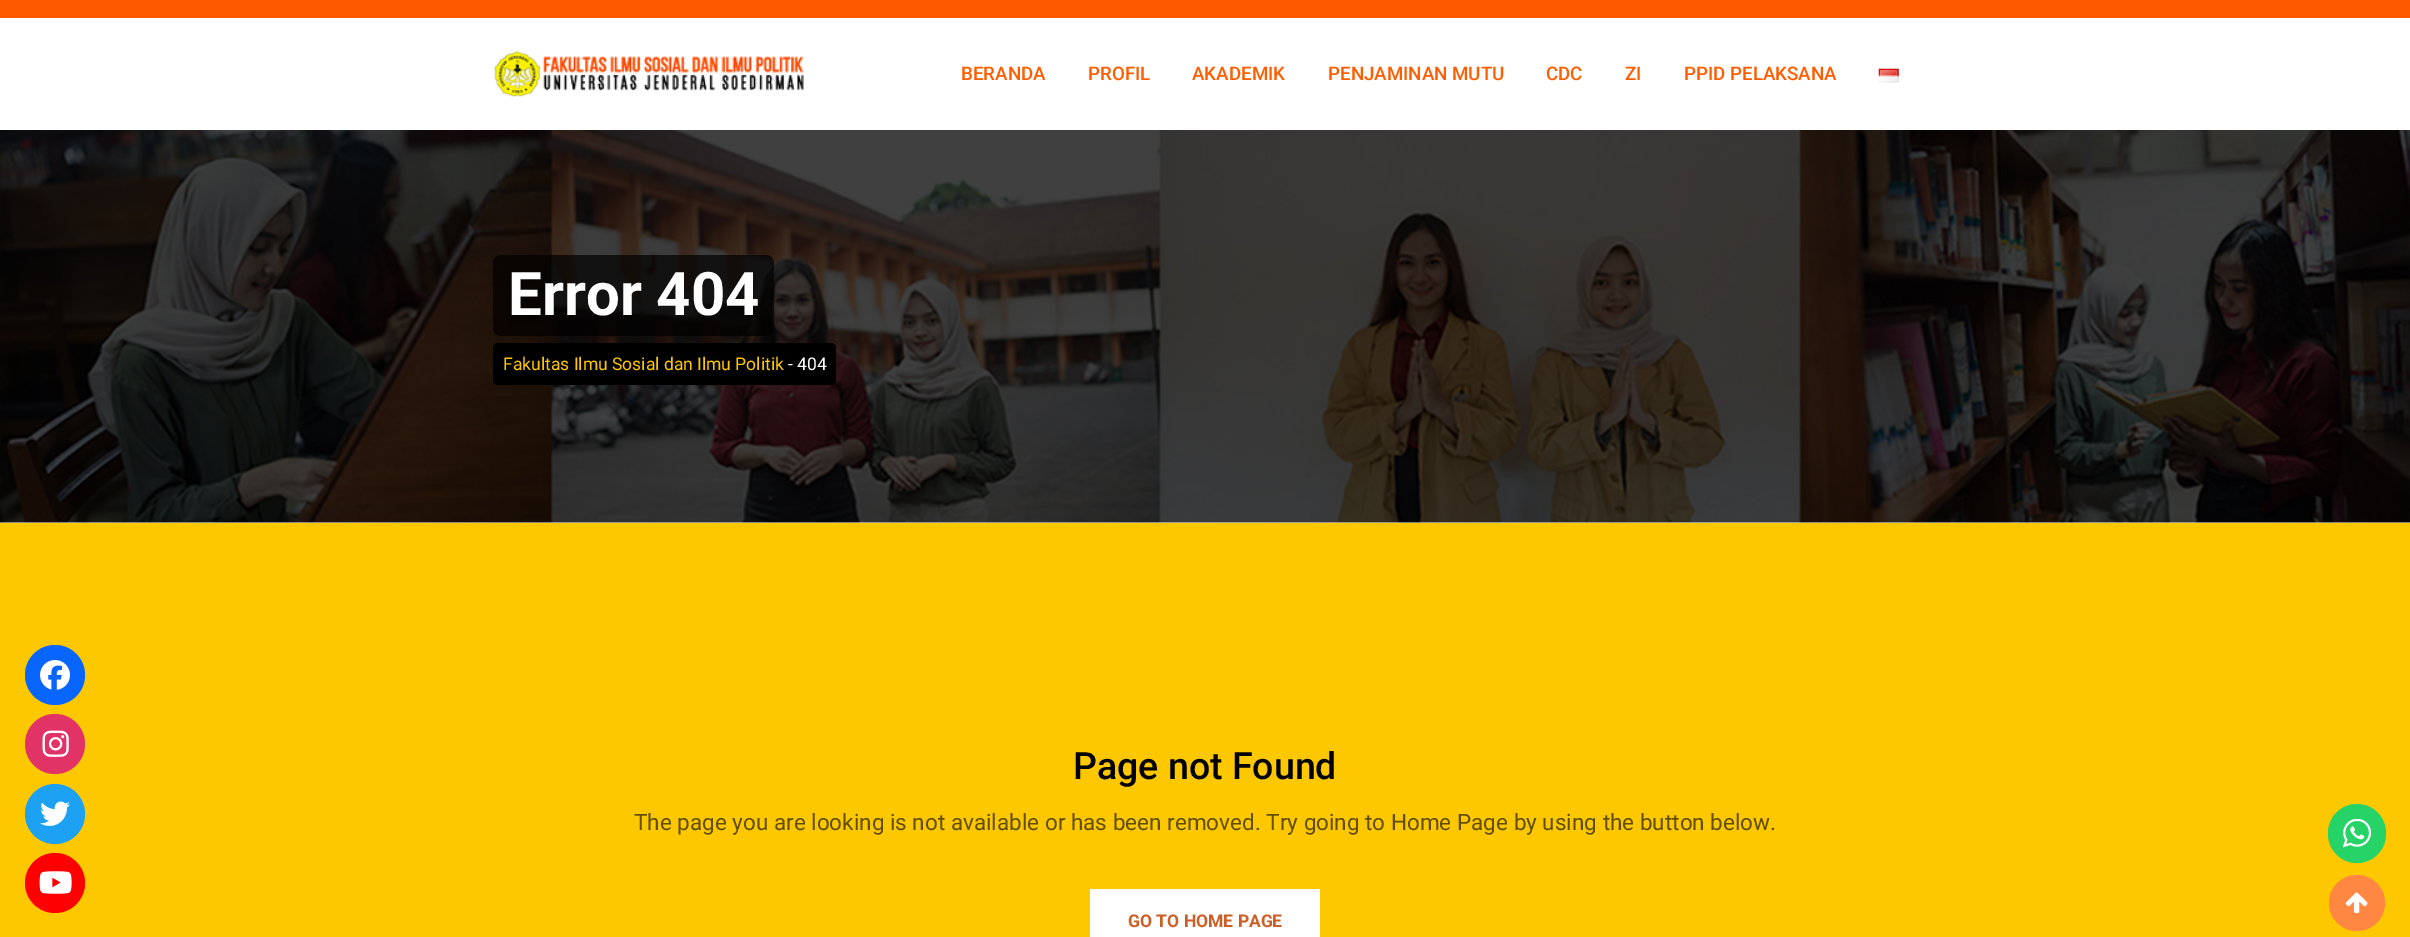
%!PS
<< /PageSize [2410 937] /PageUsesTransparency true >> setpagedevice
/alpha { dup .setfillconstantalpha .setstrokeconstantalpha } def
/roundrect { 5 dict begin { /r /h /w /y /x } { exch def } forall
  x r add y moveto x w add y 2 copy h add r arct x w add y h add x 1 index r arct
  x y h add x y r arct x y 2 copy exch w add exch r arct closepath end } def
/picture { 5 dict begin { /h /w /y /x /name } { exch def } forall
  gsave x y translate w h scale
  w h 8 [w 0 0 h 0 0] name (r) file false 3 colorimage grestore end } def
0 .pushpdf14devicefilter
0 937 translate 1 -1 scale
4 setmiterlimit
1 setgray
0 0 2410 937 rectfill
0.992 0.784 0 setrgbcolor
0 523 2410 414 rectfill
0.031 0.4 1 setrgbcolor
newpath 55 675 30 0 360 arc closepath fill
(img1.rgb) 40 660 30 30 picture
0.886 0.2 0.404 setrgbcolor
newpath 55 744 30 0 360 arc closepath fill
(img2.rgb) 42 730 27 27 picture
0.114 0.631 0.949 setrgbcolor
newpath 55 814 30 0 360 arc closepath fill
(img3.rgb) 40 801 30 25 picture
1 0 0 setrgbcolor
newpath 55 883 30 0 360 arc closepath fill
(img4.rgb) 39 871 33 23 picture
1 0.349 0 setrgbcolor
0 0 2410 18 rectfill
(img5.rgb) 493 51 311 46 picture
/Roboto-Medium [18.75 0 0 -18.75 0 0] selectfont
1 0.365 0 setrgbcolor
961 80 moveto (BERANDA) show
1088 80 moveto (PROFIL) show
1192 80 moveto (AKADEMIK) show
1328 80 moveto (PENJAMINAN MUTU) show
1546 80 moveto (CDC) show
1625 80 moveto (ZI) show
1684 80 moveto (PPID PELAKSANA) show
(img6.rgb) 1878 68 21 15 picture
(img7.rgb) 0 130 2410 393 picture
0.7 alpha
0 setgray
493 255 281 81 8 roundrect fill
/Roboto-Bold [60 0 0 -60 0 0] selectfont
1 alpha
1 setgray
508 315 moveto (Error 404) show
0 setgray
493 343 343 42 5 roundrect fill
/Roboto-Regular [17.5 0 0 -17.5 0 0] selectfont
0.992 0.784 0 setrgbcolor
503 370 moveto (Fakultas Ilmu Sosial dan Ilmu Politik) show
1 setgray
788 370 moveto (- 404) show
/Roboto-Medium [37.5 0 0 -37.5 0 0] selectfont
0 setgray
1073 779 moveto (Page not Found) show
/Roboto-Regular [22.5 0 0 -22.5 0 0] selectfont
0.388 0.306 0 setrgbcolor
634 830 moveto (The page you are looking is not available or has been removed. Try going to Home Page by using the button below.) show
1 setgray
1090 889 230 48 rectfill
/Roboto-Bold [17.5 0 0 -17.5 0 0] selectfont
0.8 0.373 0.157 setrgbcolor
1128 927 moveto (GO TO HOME PAGE) show
0.145 0.827 0.4 setrgbcolor
2328 804 58 59 29 roundrect fill
(img8.rgb) 2343 819 28 29 picture
1 0.529 0.259 setrgbcolor
newpath 2357 903 28 0 360 arc closepath fill
(img9.rgb) 2345 892 23 22 picture
.poppdf14devicefilter showpage
